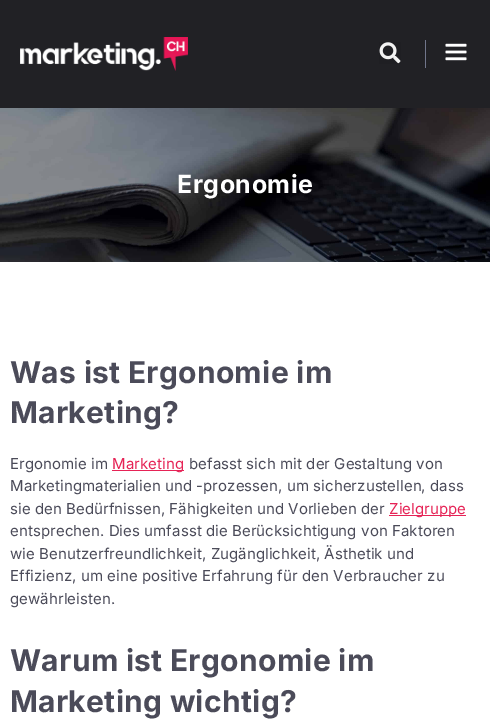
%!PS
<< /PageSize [490 723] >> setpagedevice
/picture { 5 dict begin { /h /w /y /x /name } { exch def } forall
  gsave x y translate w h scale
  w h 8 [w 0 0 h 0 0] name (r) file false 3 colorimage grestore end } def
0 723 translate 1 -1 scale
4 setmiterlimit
1 setgray
0 0 490 723 rectfill
0.129 0.129 0.145 setrgbcolor
0 0 490 108 rectfill
(img1.rgb) 20 37 168 34 picture
(img2.rgb) 379 42 22 22 picture
0.443 0.463 0.545 setrgbcolor
425 40 1 28 rectfill
(img3.rgb) 445 43 22 18 picture
(img4.rgb) 0 108 490 154 picture
/Inter-Bold [25 0 0 -25 0 0] selectfont
1 setgray
177 193 moveto 0.5 0 (Ergonomie) ashow
/Inter-Bold [30 0 0 -30 0 0] selectfont
0.294 0.294 0.349 setrgbcolor
10 383 moveto 0.3 0 (Was ist Ergonomie im) ashow
10 423 moveto 0.3 0 (Marketing?) ashow
/Inter-Regular [15 0 0 -15 0 0] selectfont
10 469 moveto 0.08 0 (Ergonomie im) ashow
0.902 0.137 0.337 setrgbcolor
112 470 72 1 rectfill
112 469 moveto 0.08 0 (Marketing) ashow
0.294 0.294 0.349 setrgbcolor
189 469 moveto 0.08 0 (befasst sich mit der Gestaltung von) ashow
10 491 moveto 0.08 0 (Marketingmaterialien und -prozessen, um sicherzustellen, dass) ashow
10 514 moveto 0.08 0 (sie den Bedürfnissen, Fähigkeiten und Vorlieben der) ashow
0.902 0.137 0.337 setrgbcolor
389 515 77 1 rectfill
389 514 moveto 0.08 0 (Zielgruppe) ashow
0.294 0.294 0.349 setrgbcolor
10 536 moveto 0.08 0 (entsprechen. Dies umfasst die Berücksichtigung von Faktoren) ashow
10 559 moveto 0.08 0 (wie Benutzerfreundlichkeit, Zugänglichkeit, Ästhetik und) ashow
10 581 moveto 0.08 0 (Effizienz, um eine positive Erfahrung für den Verbraucher zu) ashow
10 604 moveto 0.08 0 (gewährleisten.) ashow
/Inter-Bold [30 0 0 -30 0 0] selectfont
10 671 moveto 0.3 0 (Warum ist Ergonomie im) ashow
10 712 moveto 0.3 0 (Marketing wichtig?) ashow
showpage
